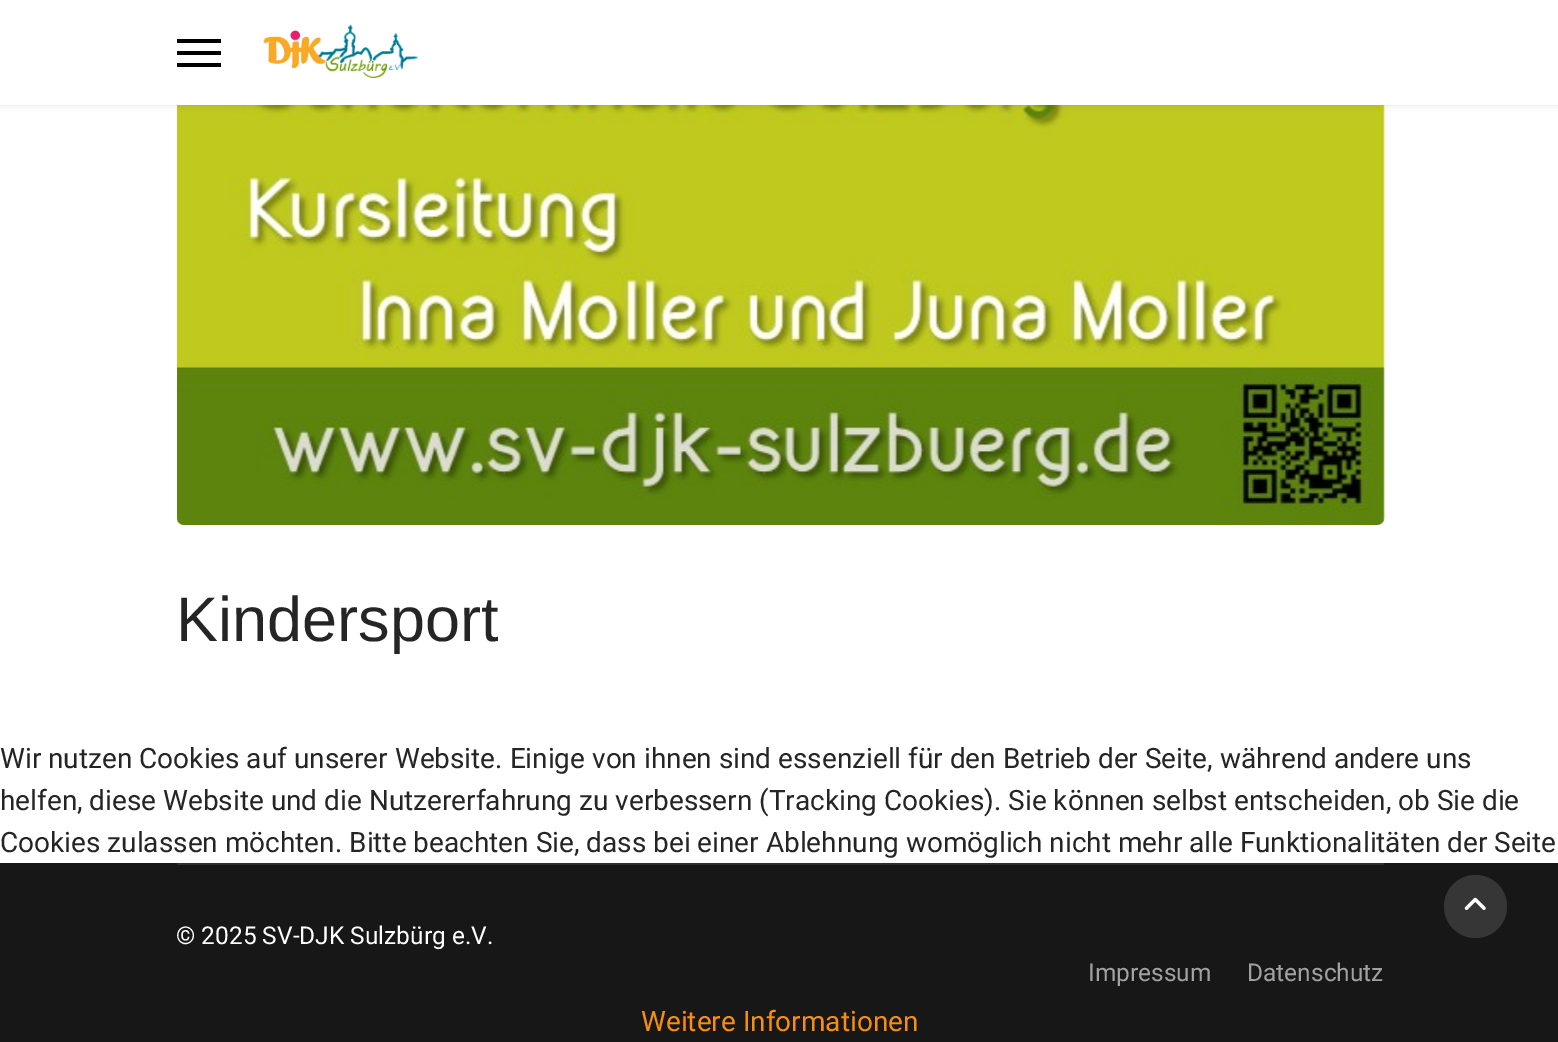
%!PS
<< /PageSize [1558 1042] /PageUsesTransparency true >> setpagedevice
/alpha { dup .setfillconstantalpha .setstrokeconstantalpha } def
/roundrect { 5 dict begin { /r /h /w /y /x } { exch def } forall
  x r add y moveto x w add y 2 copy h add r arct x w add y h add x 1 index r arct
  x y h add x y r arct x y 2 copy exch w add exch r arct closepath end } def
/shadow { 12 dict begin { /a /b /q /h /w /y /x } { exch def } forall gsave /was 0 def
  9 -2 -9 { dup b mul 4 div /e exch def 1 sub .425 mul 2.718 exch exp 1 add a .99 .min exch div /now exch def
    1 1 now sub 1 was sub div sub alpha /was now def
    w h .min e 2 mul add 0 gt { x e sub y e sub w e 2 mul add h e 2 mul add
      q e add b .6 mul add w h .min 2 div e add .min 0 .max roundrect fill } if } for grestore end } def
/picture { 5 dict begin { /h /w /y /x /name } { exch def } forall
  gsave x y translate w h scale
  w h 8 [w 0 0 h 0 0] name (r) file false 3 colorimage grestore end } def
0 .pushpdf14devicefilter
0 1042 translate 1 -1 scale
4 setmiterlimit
1 setgray
0 0 1558 1042 rectfill
(img2.rgb) 177 105 1208 420 picture
0 setgray
0 0 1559 105 0 3.5 0.1 shadow
1 setgray
0 0 1558 105 rectfill
0 setgray
177 39 44 4 rectfill
177 51 44 4 rectfill
177 63 44 4 rectfill
(img1.rgb) 263 24 156 54 picture
/LiberationSans-Regular [63 0 0 -63 0 0] selectfont
0.145 setgray
176 641 moveto (Kindersport) show
0.09 setgray
0 863 1558 179 rectfill
0.18 setgray
177 863 1207 2 rectfill
/Roboto-Regular [24.5 0 0 -24.5 0 0] selectfont
1 setgray
176 944 moveto (© 2025 SV-DJK Sulzbürg e.V.) show
0.635 setgray
1088 981 moveto (Impressum) show
1247 981 moveto (Datenschutz) show
/Roboto-Regular [28 0 0 -28 0 0] selectfont
0.145 setgray
0 768 moveto (Wir nutzen Cookies auf unserer Website. Einige von ihnen sind essenziell für den Betrieb der Seite, während andere uns) show
0 810 moveto (helfen, diese Website und die Nutzererfahrung zu verbessern \(Tracking Cookies\). Sie können selbst entscheiden, ob Sie die) show
0 852 moveto (Cookies zulassen möchten. Bitte beachten Sie, dass bei einer Ablehnung womöglich nicht mehr alle Funktionalitäten der Seite) show
0.965 0.557 0.075 setrgbcolor
641 1031 moveto (Weitere Informationen) show
0.212 setgray
newpath 1475.5 906.5 31.5 0 360 arc closepath fill
(img3.rgb) 1464 897 22 13 picture
.poppdf14devicefilter showpage
